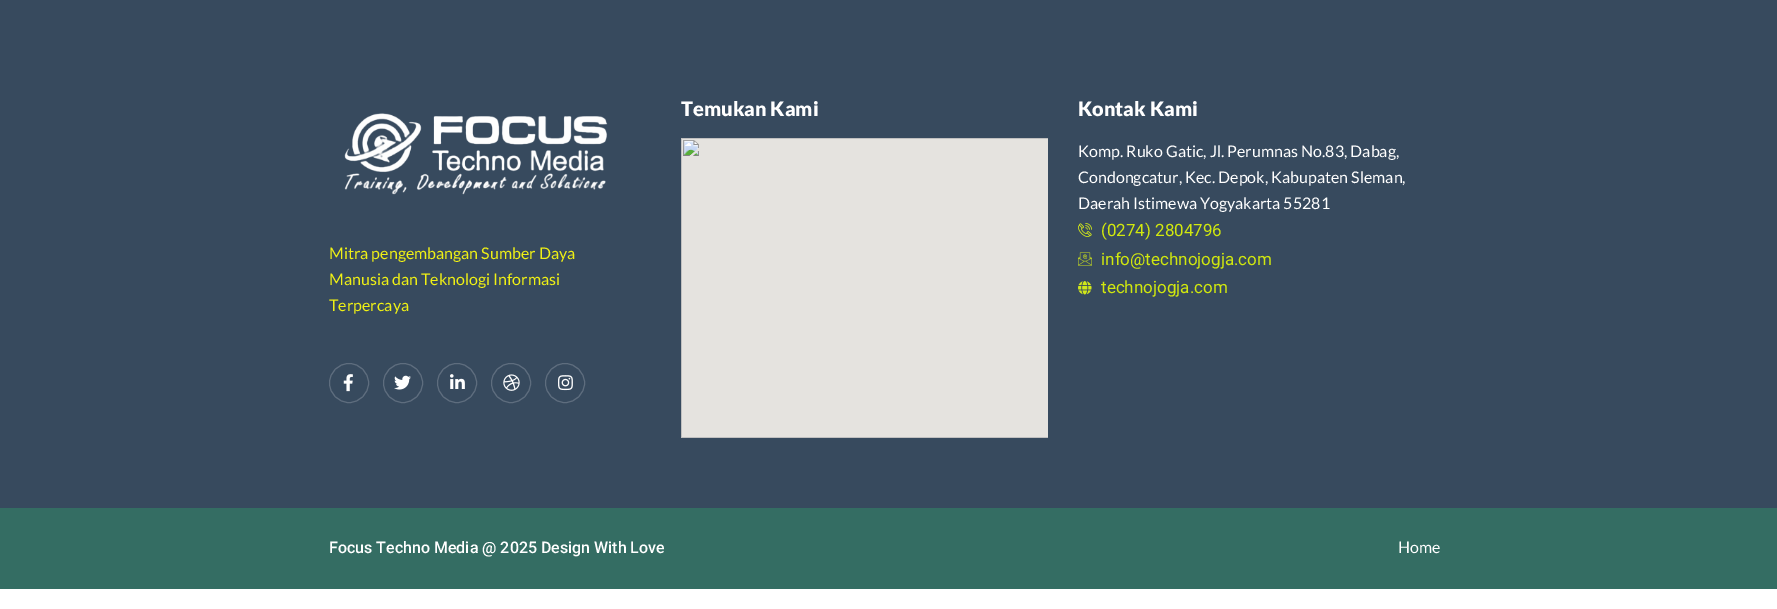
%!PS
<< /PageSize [1777 609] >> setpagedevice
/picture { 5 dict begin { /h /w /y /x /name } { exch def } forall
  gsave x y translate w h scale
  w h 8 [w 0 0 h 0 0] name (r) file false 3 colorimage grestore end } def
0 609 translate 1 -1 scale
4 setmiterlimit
1 setgray
0 0 1777 609 rectfill
0.216 0.29 0.369 setrgbcolor
0 0 1777 508 rectfill
(img1.rgb) 344 113 264 82 picture
/Lato-Regular [16 0 0 -16 0 0] selectfont
0.937 0.941 0.082 setrgbcolor
329 259 moveto (Mitra pengembangan Sumber Daya) show
329 285 moveto (Manusia dan Teknologi Informasi) show
329 311 moveto (Terpercaya) show
0.369 0.427 0.494 setrgbcolor
newpath 349 383 19.5 0 360 arc closepath stroke
(img2.rgb) 343 374 10 18 picture
newpath 403 383 19.5 0 360 arc closepath stroke
(img3.rgb) 394 375 17 15 picture
newpath 457 383 19.5 0 360 arc closepath stroke
(img4.rgb) 450 374 15 15 picture
newpath 511 383 19.5 0 360 arc closepath stroke
(img5.rgb) 503 374 17 17 picture
newpath 565 383 19.5 0 360 arc closepath stroke
(img6.rgb) 558 375 15 16 picture
/Lato-Black [20 0 0 -20 0 0] selectfont
1 setgray
681 116 moveto (Temukan Kami) show
(img7.rgb) 681 138 367 300 picture
1078 116 moveto (Kontak Kami) show
/Lato-Regular [16 0 0 -16 0 0] selectfont
1078 157 moveto (Komp. Ruko Gatic, Jl. Perumnas No.83, Dabag,) show
1078 183 moveto (Condongcatur, Kec. Depok, Kabupaten Sleman,) show
1078 209 moveto (Daerah Istimewa Yogyakarta 55281) show
(img8.rgb) 1078 223 14 14 picture
/Roboto-Regular [17 0 0 -17 0 0] selectfont
0.82 0.91 0.055 setrgbcolor
1101 236 moveto (\(0274\) 2804796) show
(img9.rgb) 1078 252 14 14 picture
1101 265 moveto (info@technojogja.com) show
(img10.rgb) 1078 281 14 14 picture
1101 293 moveto (technojogja.com) show
0.204 0.427 0.388 setrgbcolor
0 508 1777 81 rectfill
/Roboto-Medium [16 0 0 -16 0 0] selectfont
1 setgray
329 553 moveto (Focus Techno Media @ 2025 Design With Love) show
/Lato-Regular [16 0 0 -16 0 0] selectfont
1398 553 moveto (Home) show
showpage
